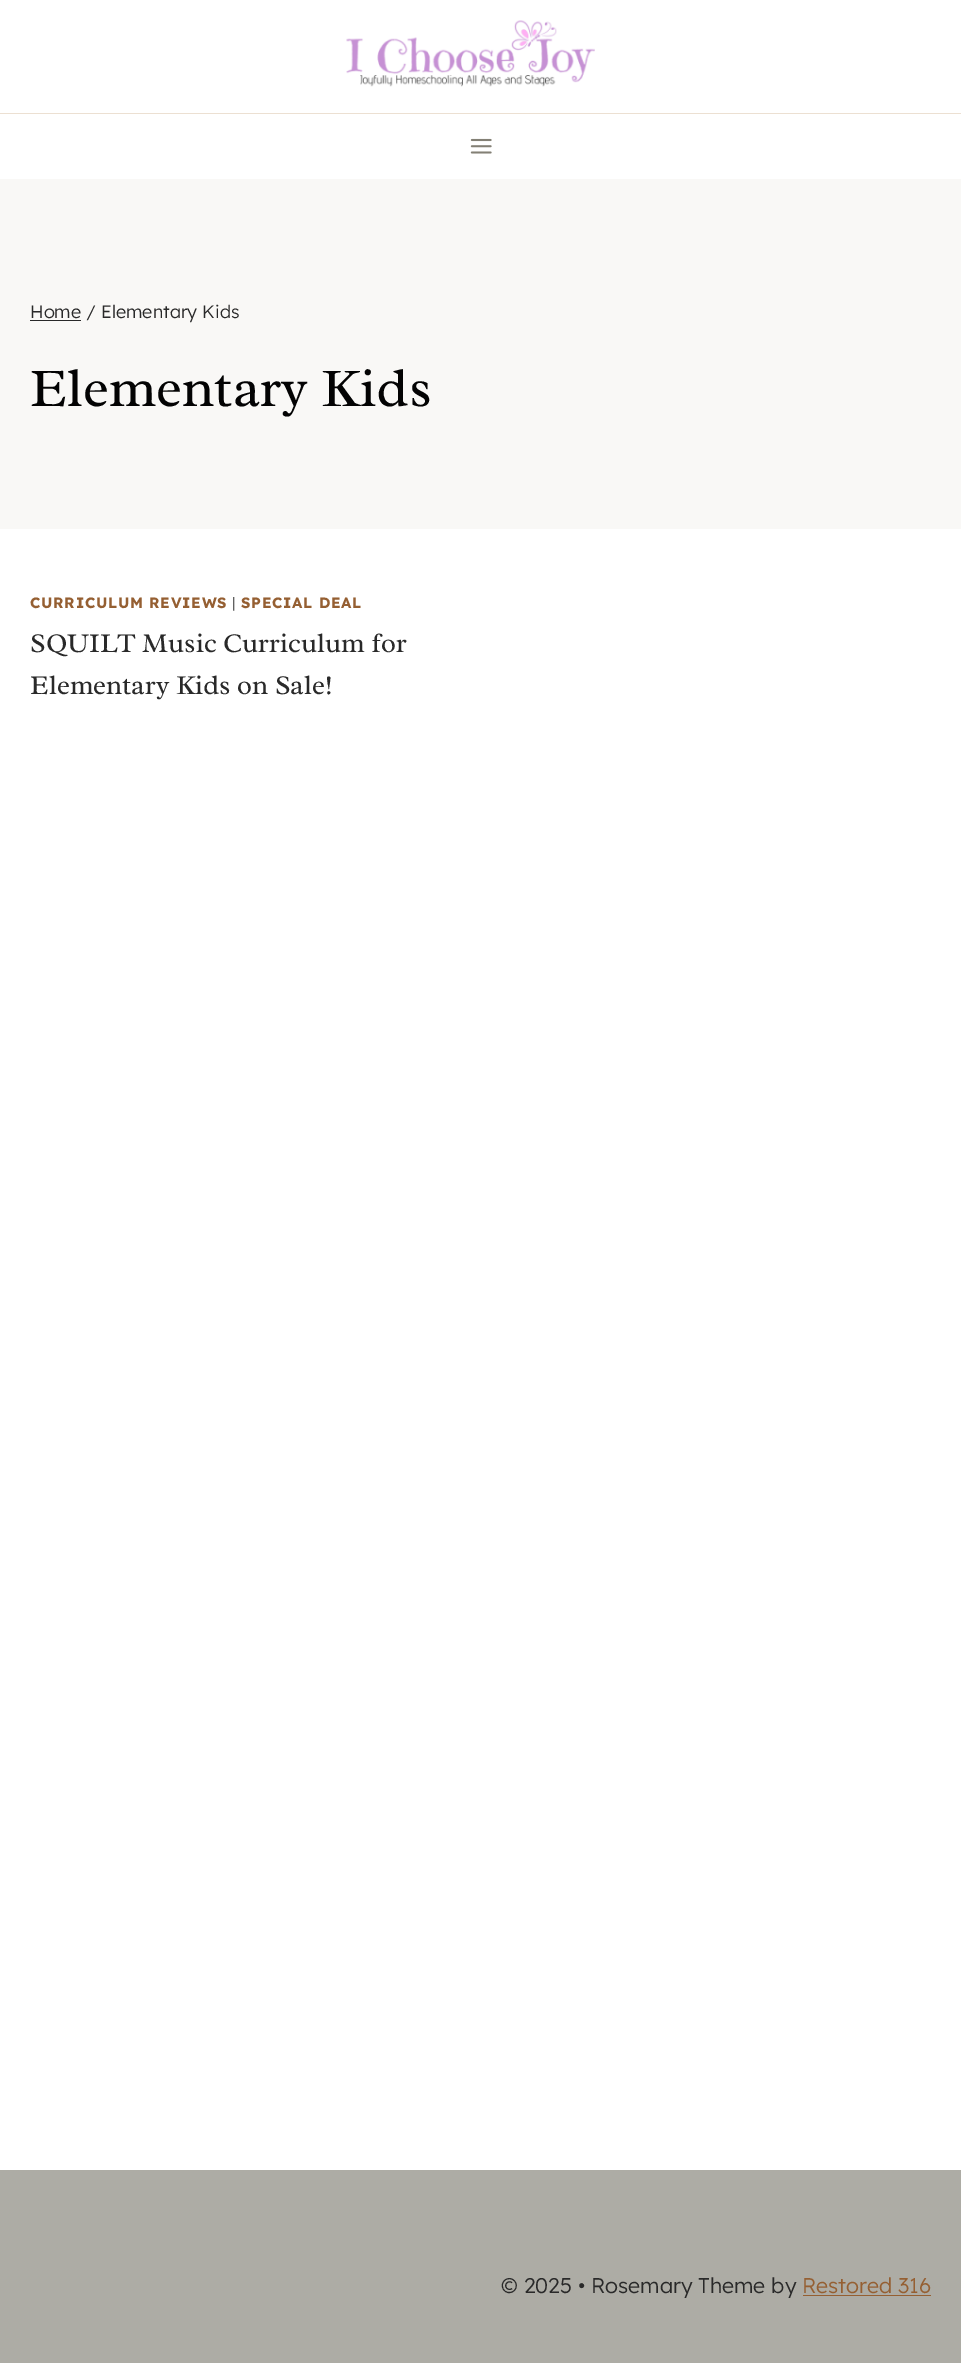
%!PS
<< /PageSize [961 2363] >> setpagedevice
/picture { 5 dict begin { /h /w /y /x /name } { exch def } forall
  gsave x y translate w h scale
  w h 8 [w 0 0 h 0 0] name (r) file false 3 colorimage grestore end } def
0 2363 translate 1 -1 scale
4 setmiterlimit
1 setgray
0 0 961 2363 rectfill
0.925 0.878 0.824 setrgbcolor
0 113 961 1 rectfill
(img1.rgb) 346 20 249 67 picture
(img2.rgb) 470 138 22 16 picture
0.976 0.973 0.965 setrgbcolor
0 179 961 350 rectfill
0.161 setgray
30 320 51 1 rectfill
/Lexend-Light [18 0 0 -18 0 0] selectfont
30 318 moveto (Home / Elementary Kids) show
/Radley-Regular [55 0 0 -55 0 0] selectfont
0.012 setgray
30 406 moveto (Elementary Kids) show
/Lexend-Bold [14.9 0 0 -14.9 0 0] selectfont
0.584 0.373 0.196 setrgbcolor
30 608 moveto 0.75 0 (CURRICULUM REVIEWS) ashow
/Lexend-Light [14.9 0 0 -14.9 0 0] selectfont
0.161 setgray
232 608 moveto 0.75 0 (|) ashow
/Lexend-Bold [14.9 0 0 -14.9 0 0] selectfont
0.584 0.373 0.196 setrgbcolor
241 608 moveto 0.75 0 (SPECIAL DEAL) ashow
/Radley-Regular [27.5 0 0 -27.5 0 0] selectfont
0.161 setgray
30 652 moveto (SQUILT Music Curriculum for) show
30 694 moveto (Elementary Kids on Sale!) show
0.678 0.675 0.647 setrgbcolor
0 2170 961 193 rectfill
/Lexend-Light [21.25 0 0 -21.25 0 0] selectfont
0.161 setgray
501 2293 moveto (© 2025 • Rosemary Theme by) show
0.584 0.373 0.196 setrgbcolor
802 2293 moveto (Restored 316) show
803 2295 128 1 rectfill
showpage
